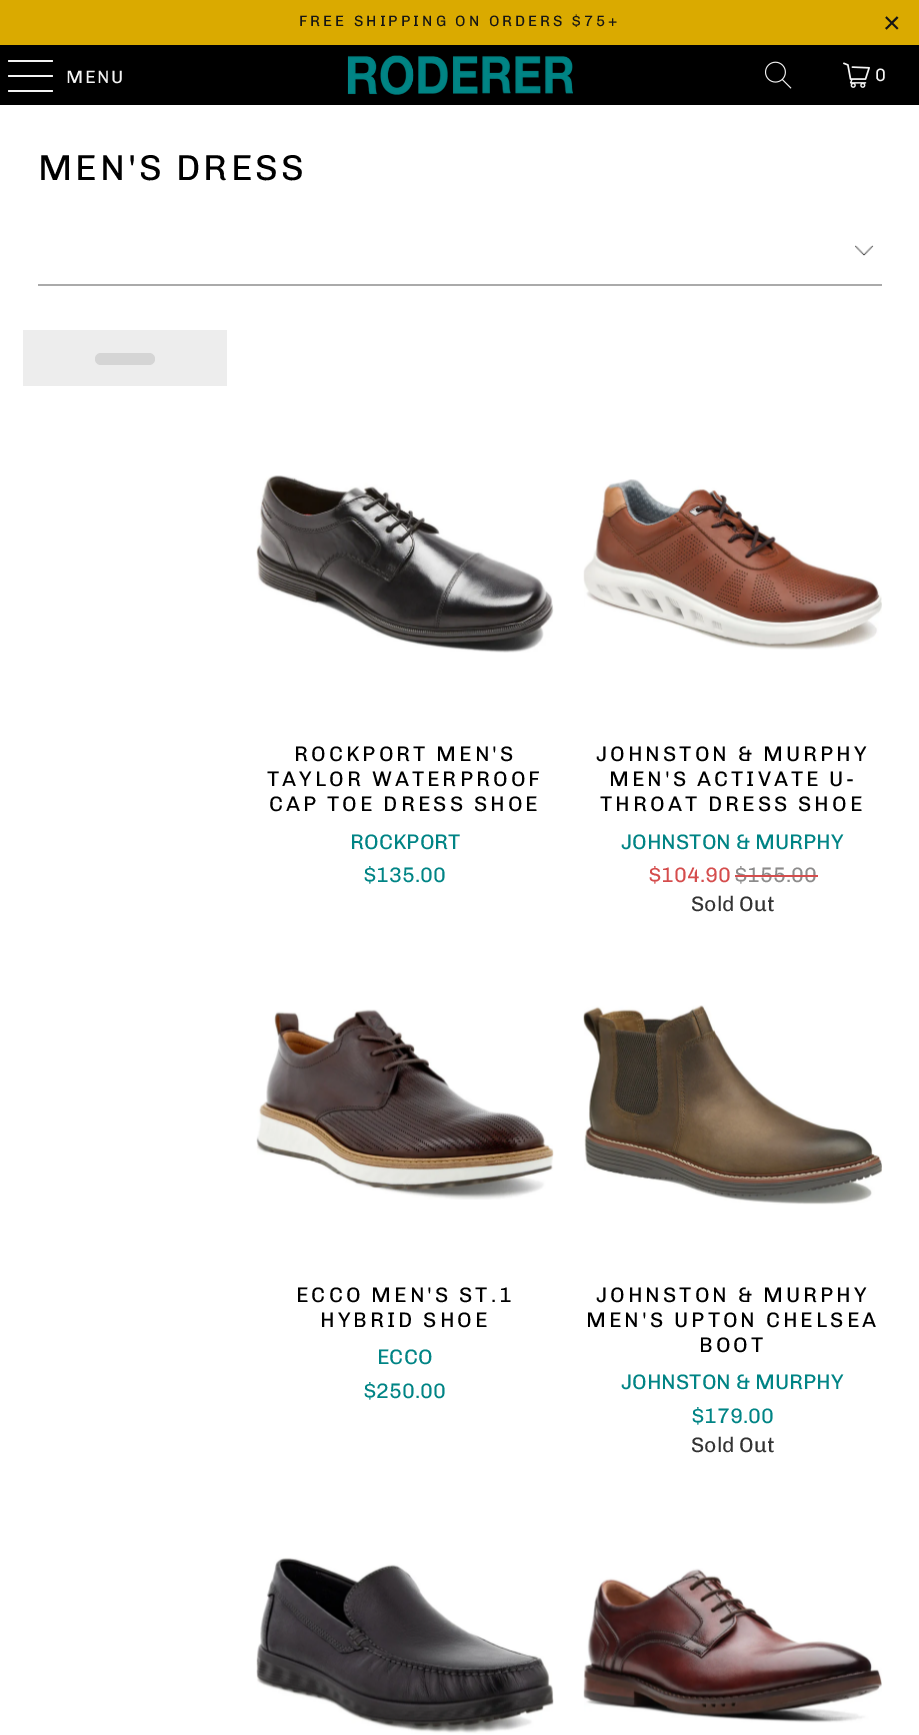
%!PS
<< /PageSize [919 1735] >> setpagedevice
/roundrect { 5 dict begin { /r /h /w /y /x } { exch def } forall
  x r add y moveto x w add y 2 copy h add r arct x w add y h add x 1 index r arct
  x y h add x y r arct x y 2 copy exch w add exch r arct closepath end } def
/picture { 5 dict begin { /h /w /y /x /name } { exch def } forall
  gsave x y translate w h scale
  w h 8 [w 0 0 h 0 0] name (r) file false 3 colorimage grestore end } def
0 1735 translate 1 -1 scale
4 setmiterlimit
1 setgray
0 0 919 1735 rectfill
0.855 0.667 0 setrgbcolor
0 0 919 45 rectfill
/Chivo-Regular [15 0 0 -15 0 0] selectfont
0.082 setgray
299 26 moveto 3 0 (FREE SHIPPING ON ORDERS $75+) ashow
/LiberationSans-Regular [30 0 0 -30 0 0] selectfont
883 33 moveto 3 0 (×) ashow
0 setgray
0 45 919 60 rectfill
0.957 setgray
8 60 45 2 1 roundrect fill
8 75 45 2 1 roundrect fill
8 90 45 2 1 roundrect fill
/Chivo-Regular [18 0 0 -18 0 0] selectfont
66 83 moveto 1.5 0 (MENU) ashow
(img1.rgb) 347 55 226 40 picture
(img2.rgb) 765 61 27 28 picture
(img3.rgb) 843 62 27 26 picture
875 81 moveto 1.5 0 (0) ashow
/Chivo-Regular [36 0 0 -36 0 0] selectfont
0 setgray
38 180 moveto 3 0 (MEN'S DRESS) ashow
(img4.rgb) 855 245 19 11 picture
0.667 setgray
38 284 844 2 rectfill
0.929 setgray
23 330 204 56 rectfill
0.835 setgray
95 353 60 12 6 roundrect fill
(img5.rgb) 256 475 298 178 picture
/Chivo-Regular [21 0 0 -21 0 0] selectfont
0 setgray
294 761 moveto 3 0 (ROCKPORT MEN'S) ashow
267 786 moveto 3 0 (TAYLOR WATERPROOF) ashow
269 811 moveto 3 0 (CAP TOE DRESS SHOE) ashow
0 0.518 0.522 setrgbcolor
350 849 moveto (ROCKPORT) show
364 882 moveto ($135.00) show
(img6.rgb) 583 479 299 171 picture
0 setgray
596 761 moveto 3 0 (JOHNSTON & MURPHY) ashow
609 786 moveto 3 0 (MEN'S ACTIVATE U-) ashow
600 811 moveto 3 0 (THROAT DRESS SHOE) ashow
0 0.518 0.522 setrgbcolor
621 849 moveto (JOHNSTON & MURPHY) show
0.835 0.302 0.302 setrgbcolor
649 882 moveto ($104.90) show
0.549 0.545 0.545 setrgbcolor
735 882 moveto ($155.00) show
0.835 0.302 0.302 setrgbcolor
735 875 83 2 rectfill
0.2 setgray
691 911 moveto (Sold Out) show
(img7.rgb) 256 1009 298 191 picture
0 setgray
296 1302 moveto 3 0 (ECCO MEN'S ST.1) ashow
320 1327 moveto 3 0 (HYBRID SHOE) ashow
0 0.518 0.522 setrgbcolor
377 1364 moveto (ECCO) show
364 1398 moveto ($250.00) show
(img8.rgb) 583 1005 299 200 picture
0 setgray
596 1302 moveto 3 0 (JOHNSTON & MURPHY) ashow
586 1327 moveto 3 0 (MEN'S UPTON CHELSEA) ashow
699 1352 moveto 3 0 (BOOT) ashow
0 0.518 0.522 setrgbcolor
621 1389 moveto (JOHNSTON & MURPHY) show
692 1423 moveto ($179.00) show
0.2 setgray
691 1452 moveto (Sold Out) show
(img9.rgb) 256 1557 298 177 picture
(img10.rgb) 583 1568 299 155 picture
showpage
